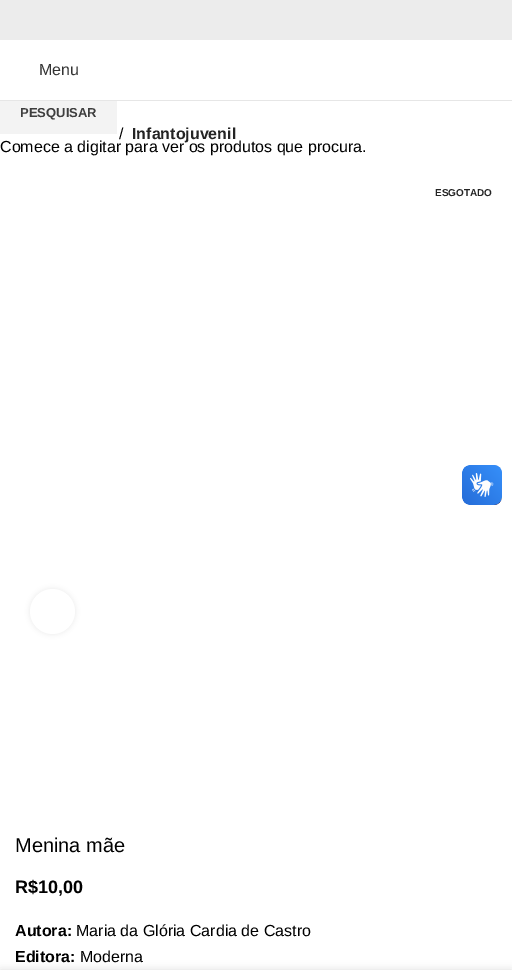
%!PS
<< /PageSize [512 970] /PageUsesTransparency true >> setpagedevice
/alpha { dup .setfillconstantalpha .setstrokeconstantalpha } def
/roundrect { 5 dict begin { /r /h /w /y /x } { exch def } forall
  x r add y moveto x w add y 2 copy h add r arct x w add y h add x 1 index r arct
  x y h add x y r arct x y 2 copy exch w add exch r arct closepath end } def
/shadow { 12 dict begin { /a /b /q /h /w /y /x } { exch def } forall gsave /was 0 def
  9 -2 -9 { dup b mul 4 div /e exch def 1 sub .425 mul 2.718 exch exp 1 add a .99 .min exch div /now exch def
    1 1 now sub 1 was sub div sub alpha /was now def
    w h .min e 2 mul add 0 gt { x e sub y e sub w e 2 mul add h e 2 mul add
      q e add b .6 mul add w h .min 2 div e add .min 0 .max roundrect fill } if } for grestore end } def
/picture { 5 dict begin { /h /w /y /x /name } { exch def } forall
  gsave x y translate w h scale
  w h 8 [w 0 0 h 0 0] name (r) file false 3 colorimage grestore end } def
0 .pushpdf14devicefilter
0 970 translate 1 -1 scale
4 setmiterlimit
1 setgray
0 0 512 970 rectfill
0.925 setgray
0 0 512 40 rectfill
0.902 setgray
0 100 512 1 rectfill
/LiberationSans-Regular [16 0 0 -16 0 0] selectfont
0.2 setgray
39 75 moveto (Menu) show
0 setgray
119 139 moveto (/) show
/LiberationSans-Bold [16 0 0 -16 0 0] selectfont
0.141 setgray
132 139 moveto (Infantojuvenil) show
/LiberationSans-Bold [10 0 0 -10 0 0] selectfont
435 196 moveto (ESGOTADO) show
0 setgray
30 589 45 45 22.5 2.5 0.08 shadow
1 setgray
newpath 52.5 611.5 22.5 0 360 arc closepath fill
/LiberationSans-Regular [20 0 0 -20 0 0] selectfont
0 setgray
15 852 moveto (Menina mãe) show
/LiberationSans-Bold [18 0 0 -18 0 0] selectfont
15 893 moveto (R$10,00) show
/LiberationSans-Bold [16 0 0 -16 0 0] selectfont
15 936 moveto (Autora:) show
/LiberationSans-Regular [16 0 0 -16 0 0] selectfont
76 936 moveto (Maria da Glória Cardia de Castro) show
/LiberationSans-Bold [16 0 0 -16 0 0] selectfont
15 962 moveto (Editora:) show
/LiberationSans-Regular [16 0 0 -16 0 0] selectfont
80 962 moveto (Moderna) show
0.953 setgray
0 101 117 33 rectfill
/LiberationSans-Bold [13 0 0 -13 0 0] selectfont
0.243 setgray
20 117 moveto (PESQUISAR) show
/LiberationSans-Regular [16 0 0 -16 0 0] selectfont
0 setgray
0 152 moveto (Comece a digitar para ver os produtos que procura.) show
(img1.rgb) 462 465 40 40 picture
(img2.rgb) 462 465 40 40 picture
0 970 512 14 0 4.5 0.14 shadow
.poppdf14devicefilter showpage
